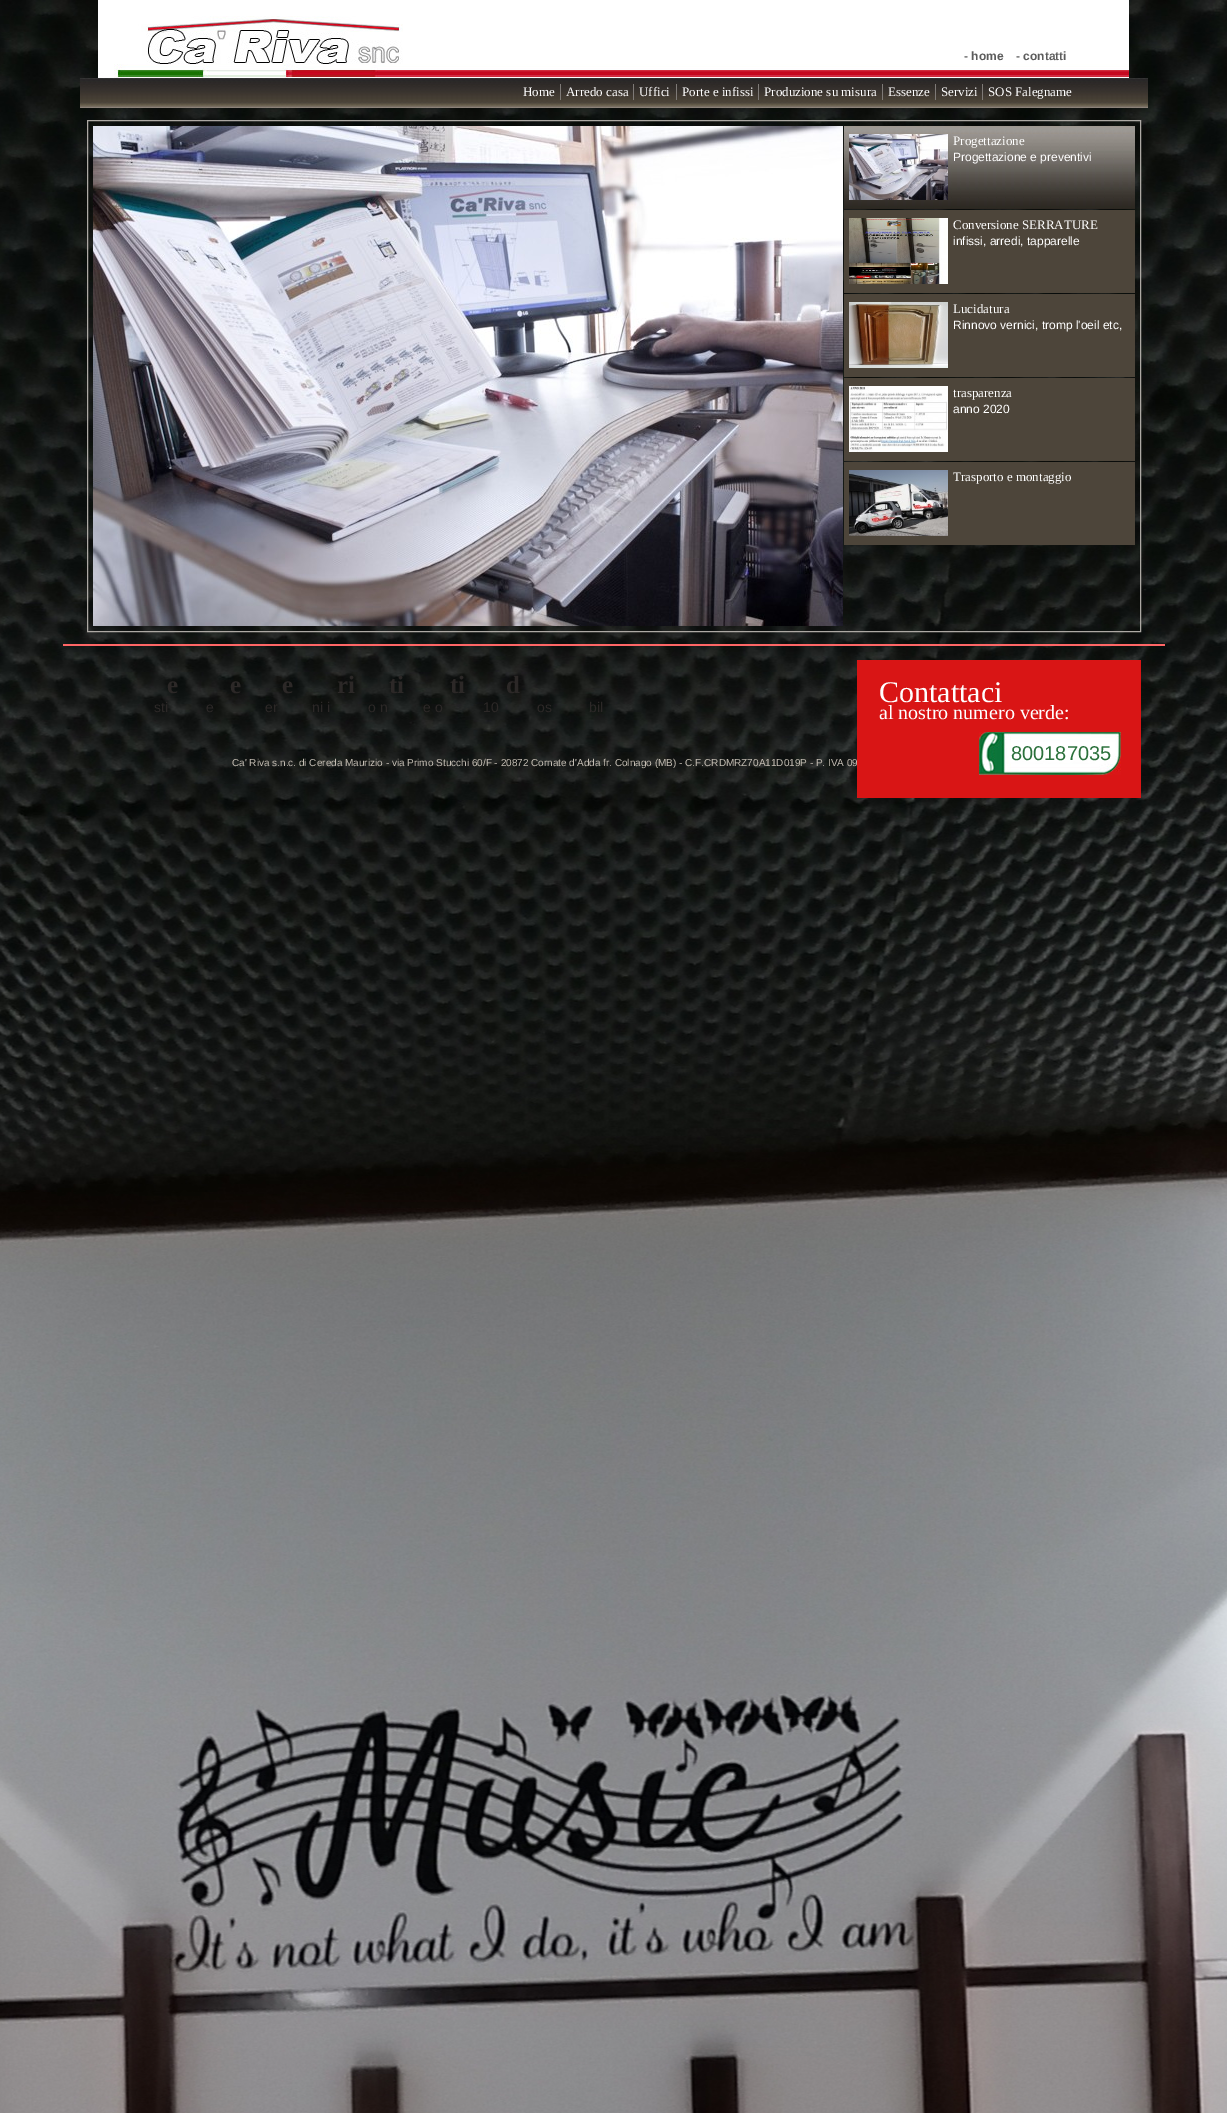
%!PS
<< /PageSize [1227 2113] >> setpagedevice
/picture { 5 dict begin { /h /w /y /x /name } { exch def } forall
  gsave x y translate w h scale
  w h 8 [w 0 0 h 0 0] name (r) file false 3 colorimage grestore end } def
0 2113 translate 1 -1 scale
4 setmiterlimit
1 setgray
0 0 1227 2113 rectfill
(img1.rgb) 0 0 1227 2113 picture
(img2.rgb) 98 0 1031 78 picture
(img3.rgb) 98 16 305 62 picture
/LiberationSans-Bold [12 0 0 -12 0 0] selectfont
0.361 setgray
964 60 moveto (- home) show
1016 60 moveto (- contatti) show
(img4.rgb) 80 78 1068 30 picture
0.494 0.478 0.467 setrgbcolor
560 84 1 16 rectfill
/LiberationSerif-Regular [13 0 0 -13 0 0] selectfont
1 setgray
523 96 moveto (Home) show
0.494 0.478 0.467 setrgbcolor
633 84 1 16 rectfill
1 setgray
566 96 moveto (Arredo casa) show
0.494 0.478 0.467 setrgbcolor
676 84 1 16 rectfill
1 setgray
639 96 moveto (Uffici) show
0.494 0.478 0.467 setrgbcolor
758 84 1 16 rectfill
1 setgray
682 96 moveto (Porte e infissi) show
0.494 0.478 0.467 setrgbcolor
882 84 1 16 rectfill
1 setgray
764 96 moveto (Produzione su misura) show
0.494 0.478 0.467 setrgbcolor
935 84 1 16 rectfill
1 setgray
888 96 moveto (Essenze) show
0.494 0.478 0.467 setrgbcolor
982 84 1 16 rectfill
1 setgray
941 96 moveto (Servizi) show
988 96 moveto (SOS Falegname) show
0.678 0.663 0.643 setrgbcolor
87.5 120.5 1053 511 rectstroke
(img5.rgb) 93 126 750 500 picture
(img6.rgb) 844 126 291 83 picture
(img7.rgb) 849 134 99 66 picture
1 setgray
953 145 moveto (Progettazione) show
/LiberationSans-Regular [12 0 0 -12 0 0] selectfont
953 161 moveto (Progettazione e preventivi) show
0.302 0.271 0.227 setrgbcolor
844 210 291 83 rectfill
(img8.rgb) 849 218 99 66 picture
/LiberationSerif-Regular [13 0 0 -13 0 0] selectfont
1 setgray
953 229 moveto (Conversione SERRATURE) show
/LiberationSans-Regular [12 0 0 -12 0 0] selectfont
953 245 moveto (infissi, arredi, tapparelle) show
0.302 0.271 0.227 setrgbcolor
844 294 291 83 rectfill
(img9.rgb) 849 302 99 66 picture
/LiberationSerif-Regular [13 0 0 -13 0 0] selectfont
1 setgray
953 313 moveto (Lucidatura) show
/LiberationSans-Regular [12 0 0 -12 0 0] selectfont
953 329 moveto (Rinnovo vernici, tromp l'oeil etc,) show
0.302 0.271 0.227 setrgbcolor
844 378 291 83 rectfill
(img10.rgb) 849 386 99 66 picture
/LiberationSerif-Regular [13 0 0 -13 0 0] selectfont
1 setgray
953 397 moveto (trasparenza) show
/LiberationSans-Regular [12 0 0 -12 0 0] selectfont
953 413 moveto (anno 2020) show
0.302 0.271 0.227 setrgbcolor
844 462 291 83 rectfill
(img11.rgb) 849 470 99 66 picture
/LiberationSerif-Regular [13 0 0 -13 0 0] selectfont
1 setgray
953 481 moveto (Trasporto e montaggio) show
1 0.4 0.4 setrgbcolor
63 644 1102 2 rectfill
/LiberationSerif-Bold [25 0 0 -25 0 0] selectfont
0.173 0.157 0.153 setrgbcolor
167 693 moveto (e) show
230 693 moveto (e) show
282 693 moveto (e) show
337 693 moveto (ri) show
389 693 moveto (ti) show
450 693 moveto (ti) show
506 693 moveto (d) show
/LiberationSans-Regular [14 0 0 -14 0 0] selectfont
154 712 moveto (sti) show
206 712 moveto (e) show
265 712 moveto (er) show
312 712 moveto (ni i) show
368 712 moveto (o n) show
423 712 moveto (e o) show
483 712 moveto (10) show
537 712 moveto (os) show
589 712 moveto (bil) show
/LiberationSans-Regular [10 0 0 -10 0 0] selectfont
0.773 0.745 0.706 setrgbcolor
232 766 moveto (Ca' Riva s.n.c. di Cereda Maurizio - via Primo Stucchi 60/F - 20872 Cornate d'Adda fr. Colnago \(MB\) - C.F.CRDMRZ70A11D019P - P. IVA 09) show
0.851 0.082 0.082 setrgbcolor
857 660 284 138 rectfill
/LiberationSerif-Regular [30 0 0 -30 0 0] selectfont
1 setgray
879 702 moveto (Contattaci) show
/LiberationSerif-Regular [20 0 0 -20 0 0] selectfont
879 719 moveto (al nostro numero verde:) show
(img12.rgb) 979 732 142 43 picture
/LiberationSans-Regular [20 0 0 -20 0 0] selectfont
0.169 0.443 0.231 setrgbcolor
1011 760 moveto (800187035) show
showpage
